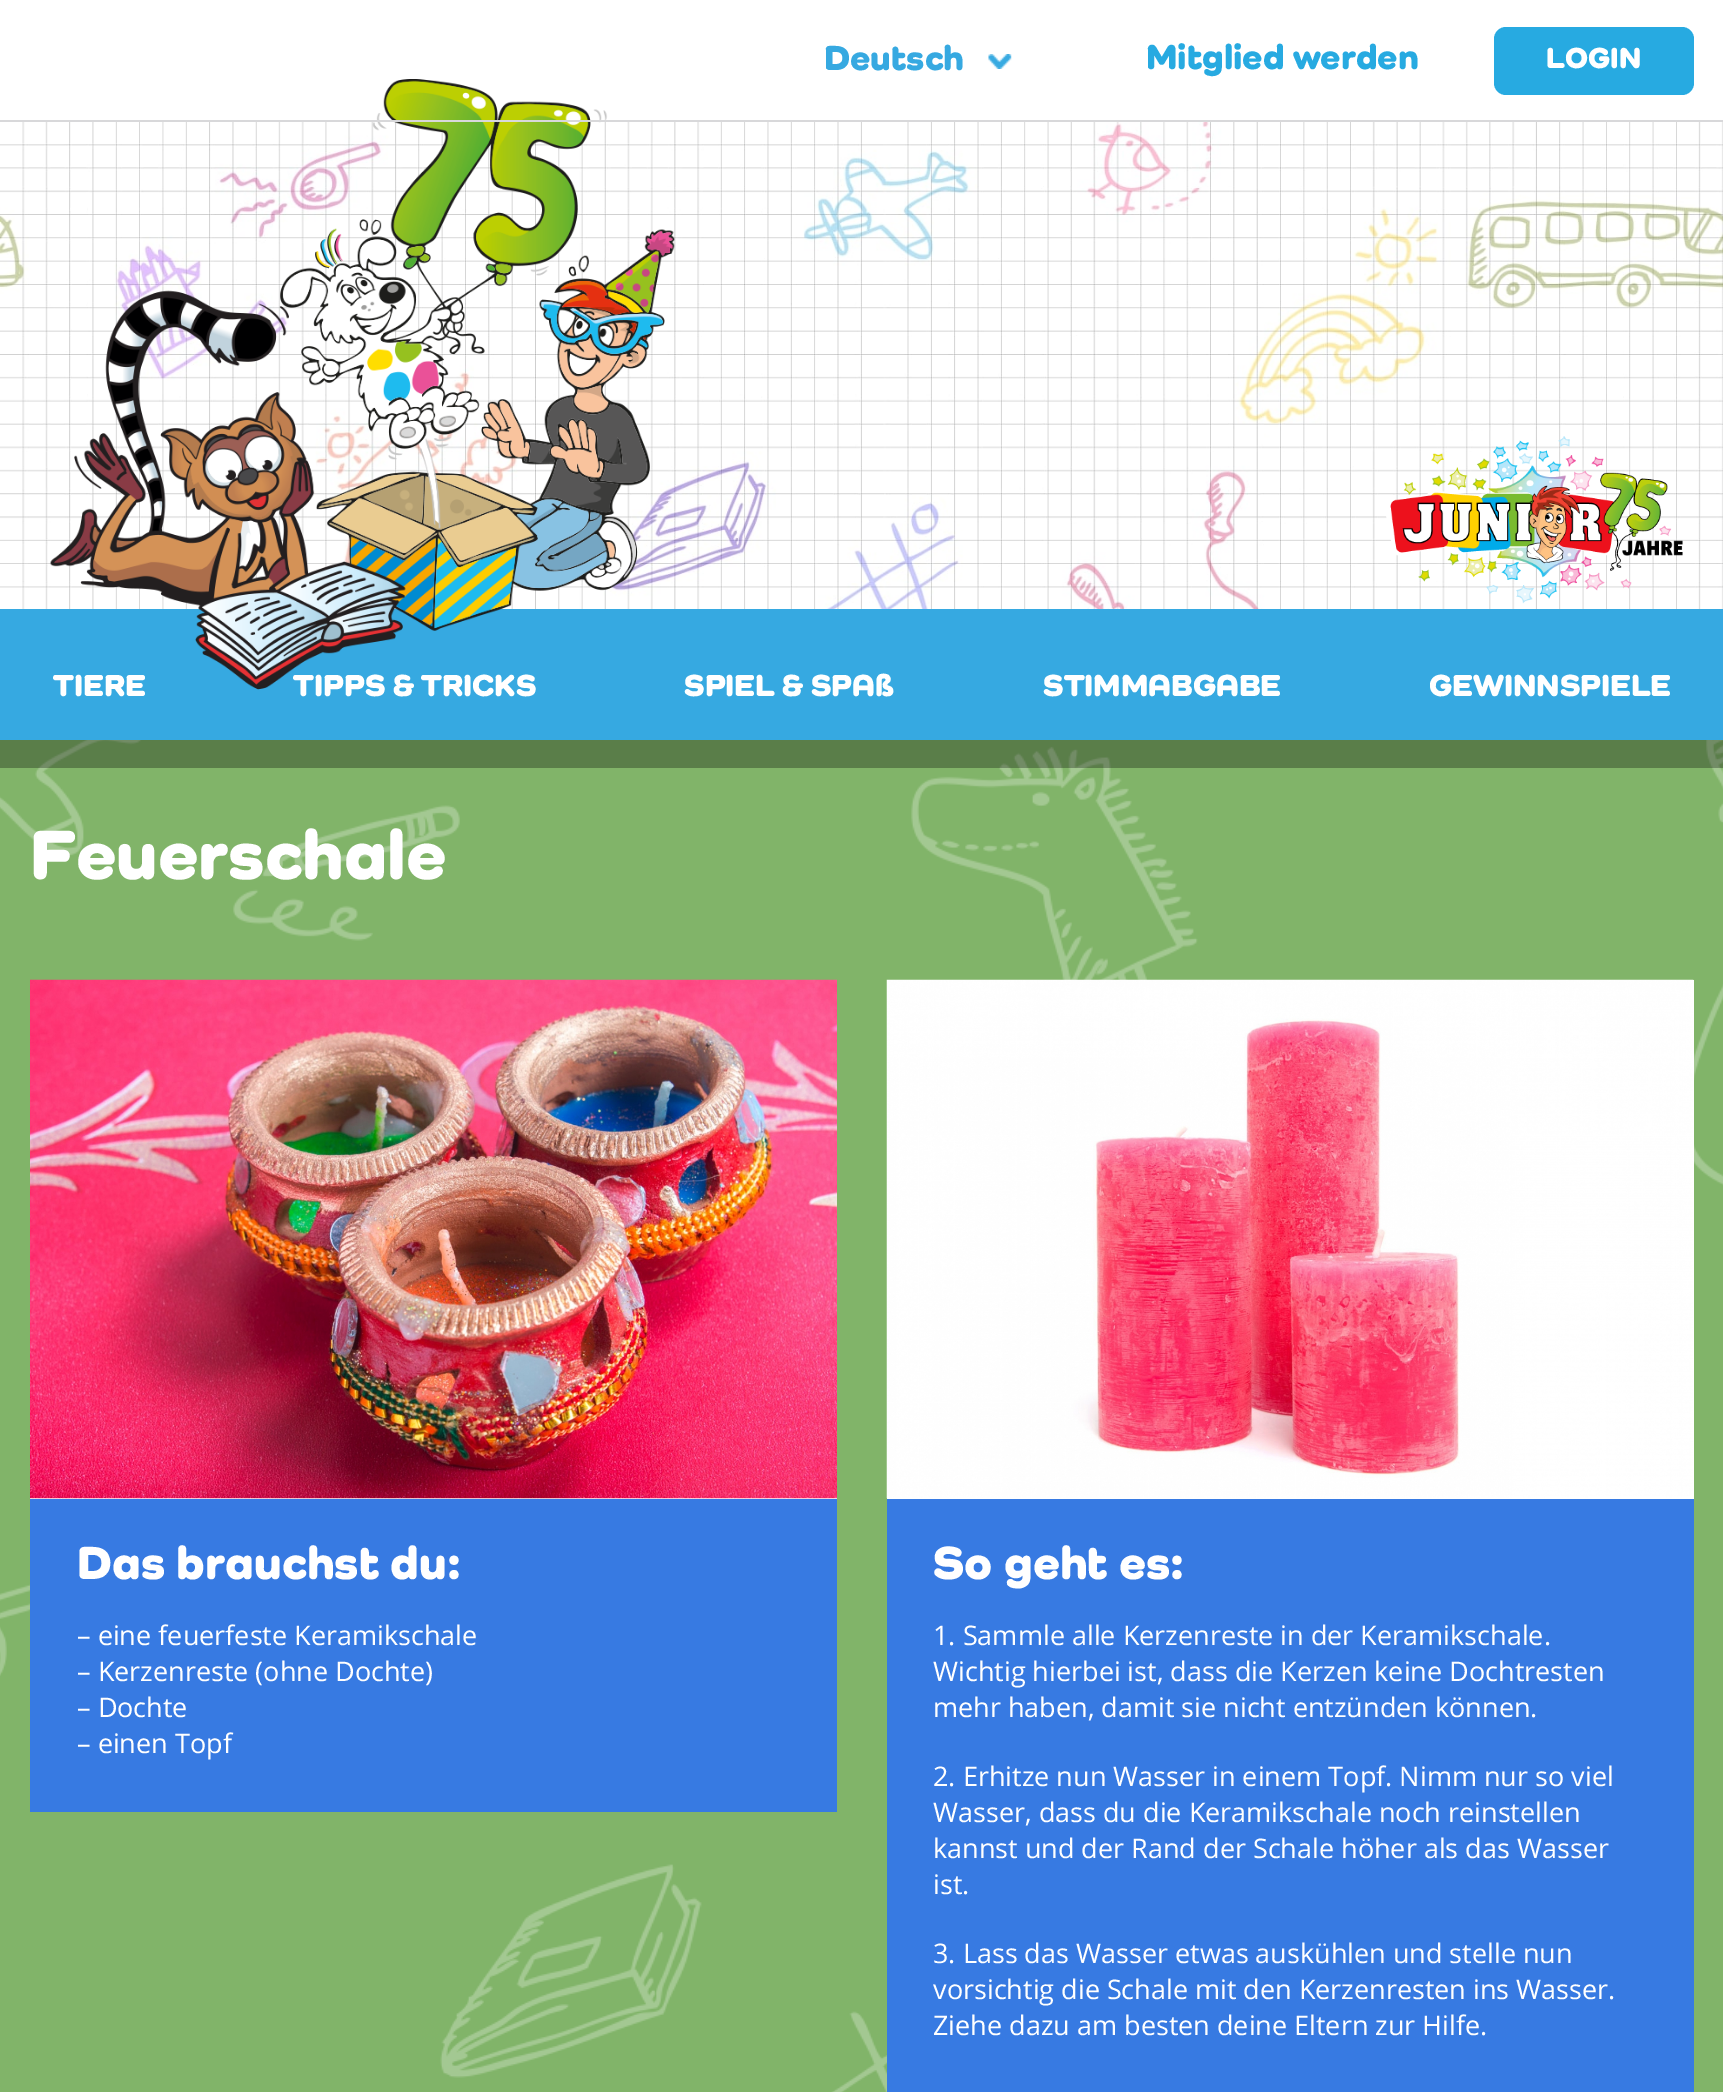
%!PS
<< /PageSize [1723 2092] /PageUsesTransparency true >> setpagedevice
/alpha { dup .setfillconstantalpha .setstrokeconstantalpha } def
/roundrect { 5 dict begin { /r /h /w /y /x } { exch def } forall
  x r add y moveto x w add y 2 copy h add r arct x w add y h add x 1 index r arct
  x y h add x y r arct x y 2 copy exch w add exch r arct closepath end } def
/picture { 5 dict begin { /h /w /y /x /name } { exch def } forall
  gsave x y translate w h scale
  w h 8 [w 0 0 h 0 0] name (r) file false 3 colorimage grestore end } def
0 .pushpdf14devicefilter
0 2092 translate 1 -1 scale
4 setmiterlimit
1 setgray
0 0 1723 2092 rectfill
(img2.rgb) 0 122 1723 487 picture
0.212 0.663 0.882 setrgbcolor
0 609 1723 131 rectfill
(img3.rgb) 50 79 625 611 picture
0.847 0.847 0.855 setrgbcolor
0 120 1723 2 rectfill
/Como-Black [36 0 0 -36 0 0] selectfont
0.212 0.663 0.882 setrgbcolor
824 70 moveto (Deutsch) show
(img1.rgb) 988 54 24 15 picture
0.153 0.667 0.882 setrgbcolor
1146 69 moveto (Mitglied werden) show
1494 27 200 68 12 roundrect fill
/Como-Black [30 0 0 -30 0 0] selectfont
1 setgray
1546 68 moveto (LOGIN) show
(img4.rgb) 1386 436 297 168 picture
/Como-Black [31.5 0 0 -31.5 0 0] selectfont
53 696 moveto (TIERE) show
293 696 moveto (TIPPS & TRICKS) show
684 696 moveto (SPIEL & SPAß) show
1043 696 moveto (STIMMABGABE) show
1429 696 moveto (GEWINNSPIELE) show
0.506 0.706 0.412 setrgbcolor
0 740 1723 1352 rectfill
(img5.rgb) 0 740 1723 1352 picture
0.3 alpha
0 setgray
0 740 1723 28 rectfill
/Como-Black [72 0 0 -72 0 0] selectfont
1 alpha
1 setgray
30 879 moveto (Feuerschale) show
0.216 0.478 0.886 setrgbcolor
30 1499 807 313 rectfill
1 setgray
30 1498 807 1 rectfill
(img6.rgb) 30 979 807 520 picture
/Como-Black [48 0 0 -48 0 0] selectfont
77 1579 moveto (Das brauchst du:) show
/OpenSans-Regular [27 0 0 -27 0 0] selectfont
77 1645 moveto (– eine feuerfeste Keramikschale) show
77 1681 moveto (– Kerzenreste \(ohne Dochte\)) show
77 1717 moveto (– Dochte) show
77 1753 moveto (– einen Topf) show
0.216 0.478 0.886 setrgbcolor
887 1499 807 593 rectfill
1 setgray
887 980 807 519 rectfill
(img7.rgb) 886 979 808 520 picture
/Como-Black [48 0 0 -48 0 0] selectfont
933 1579 moveto (So geht es:) show
/OpenSans-Regular [27 0 0 -27 0 0] selectfont
933 1645 moveto (1. Sammle alle Kerzenreste in der Keramikschale.) show
933 1681 moveto (Wichtig hierbei ist, dass die Kerzen keine Dochtresten) show
933 1717 moveto (mehr haben, damit sie nicht entzünden können.) show
933 1786 moveto (2. Erhitze nun Wasser in einem Topf. Nimm nur so viel) show
933 1822 moveto (Wasser, dass du die Keramikschale noch reinstellen) show
933 1858 moveto (kannst und der Rand der Schale höher als das Wasser) show
933 1894 moveto (ist.) show
933 1963 moveto (3. Lass das Wasser etwas auskühlen und stelle nun) show
933 1999 moveto (vorsichtig die Schale mit den Kerzenresten ins Wasser.) show
933 2035 moveto (Ziehe dazu am besten deine Eltern zur Hilfe.) show
.poppdf14devicefilter showpage
